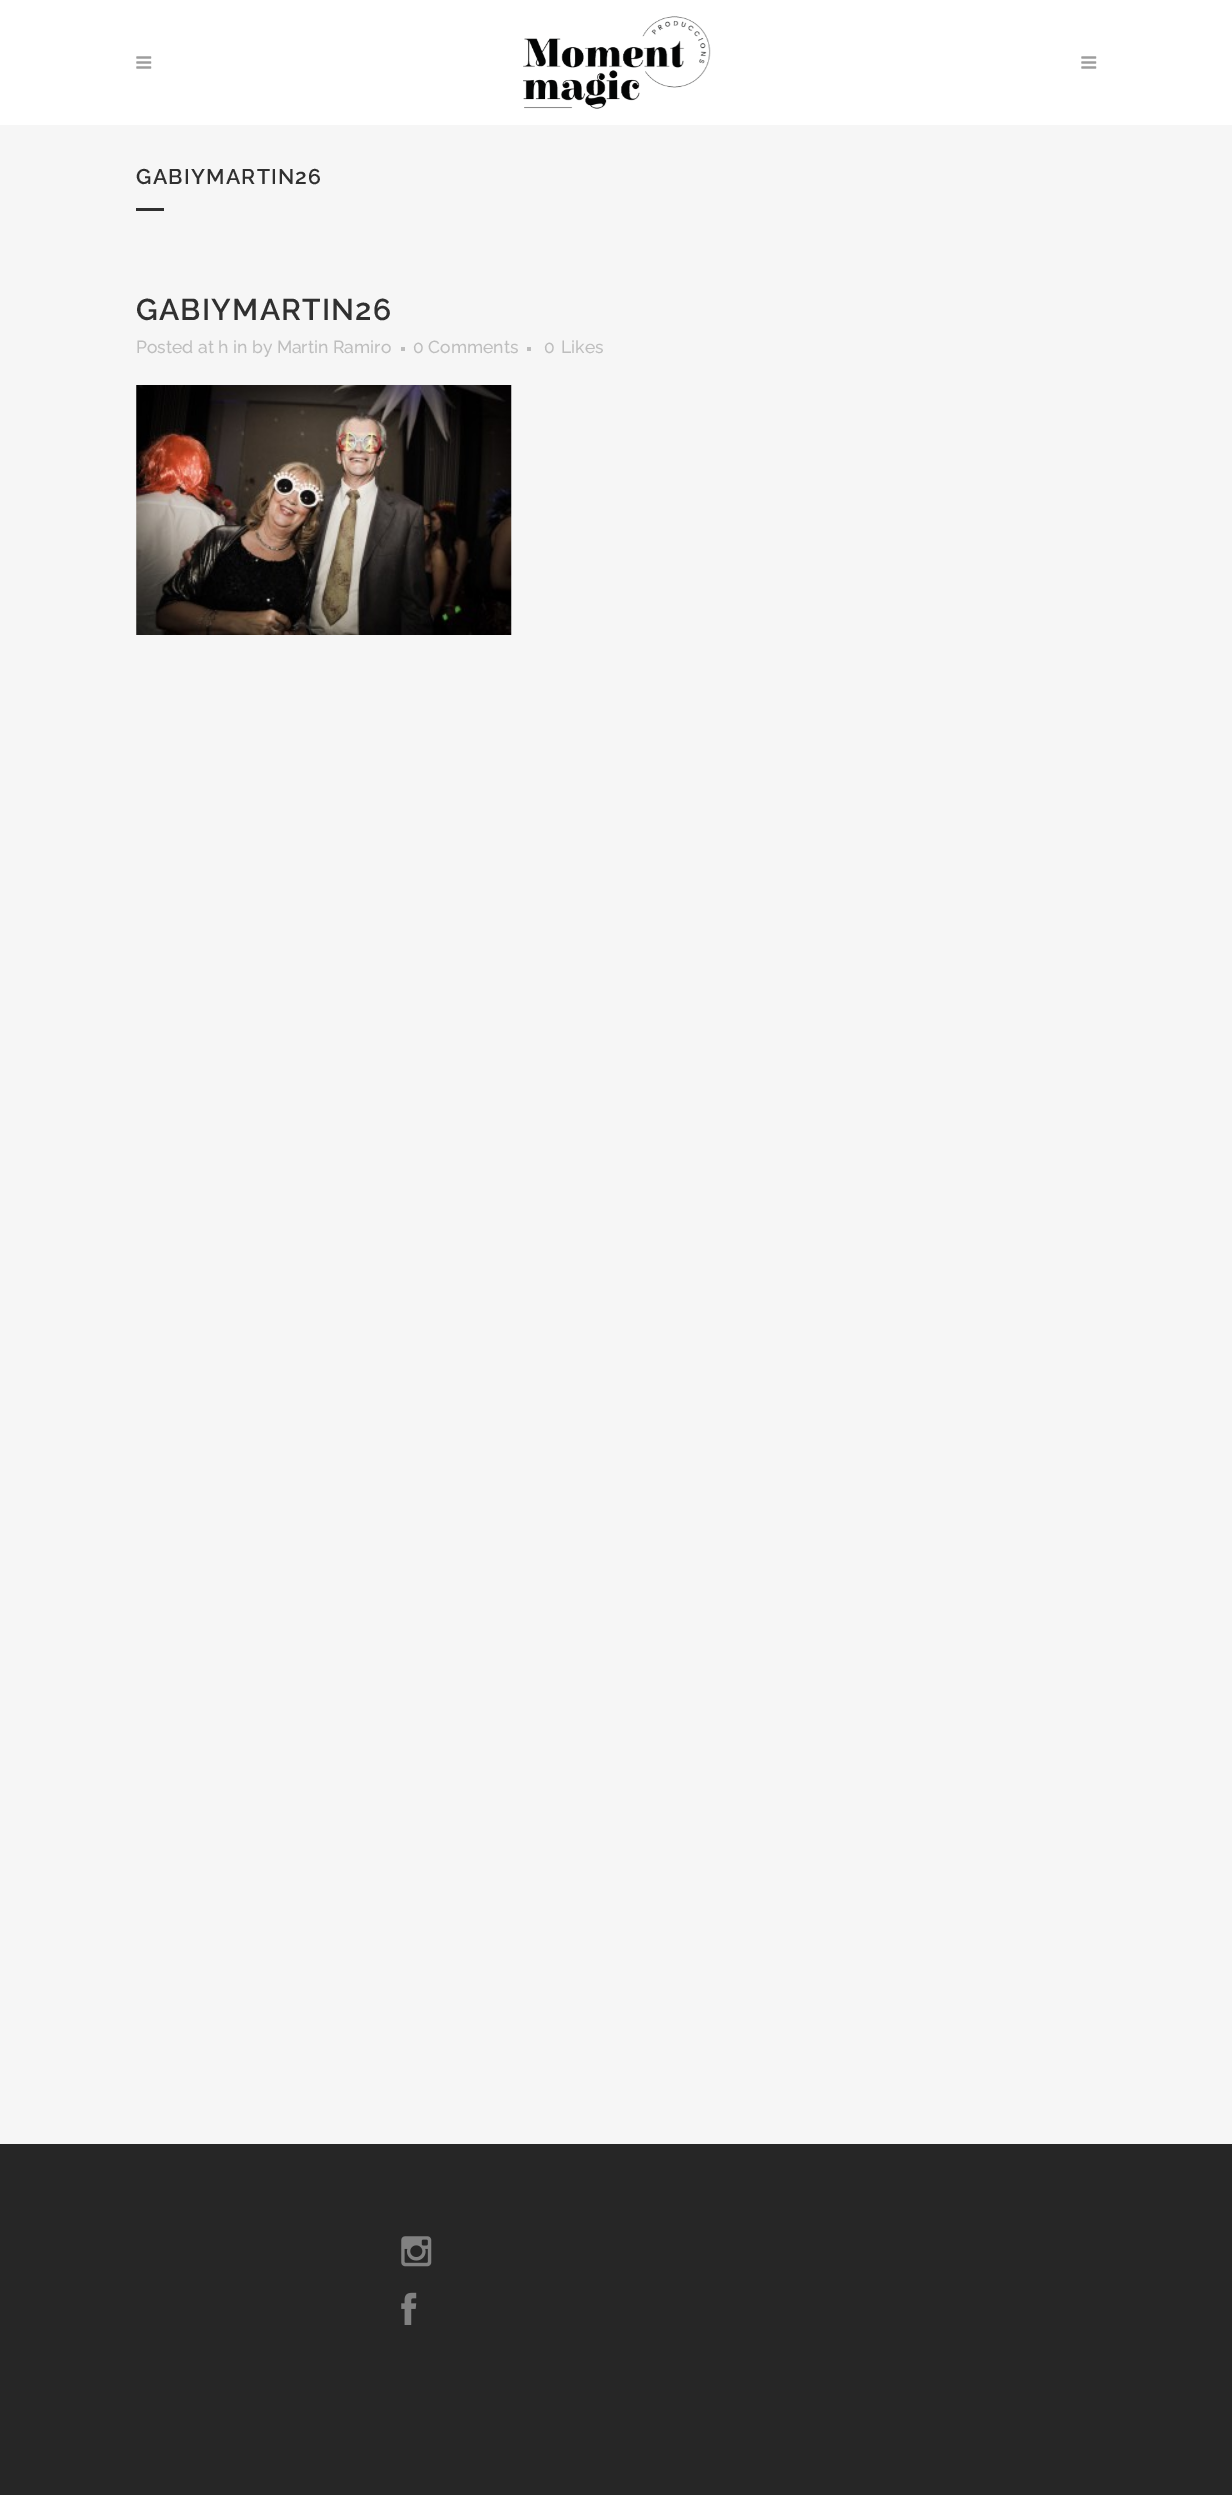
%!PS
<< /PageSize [1232 2495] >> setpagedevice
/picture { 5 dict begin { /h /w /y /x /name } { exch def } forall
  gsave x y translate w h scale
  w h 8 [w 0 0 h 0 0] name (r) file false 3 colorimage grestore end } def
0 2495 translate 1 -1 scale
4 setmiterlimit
0.965 setgray
0 0 1232 2495 rectfill
1 setgray
0 0 1232 125 rectfill
(img1.rgb) 136 56 16 13 picture
(img2.rgb) 523 16 188 93 picture
(img1.rgb) 1081 56 16 13 picture
/Raleway-SemiBold [21.25 0 0 -21.25 0 0] selectfont
0.188 setgray
136 184 moveto 1.25 0 (GABIYMARTIN26) ashow
136 208 28 3 rectfill
/Raleway-SemiBold [30 0 0 -30 0 0] selectfont
136 320 moveto 1.25 0 (GABIYMARTIN26) ashow
/Raleway-Medium [17.5 0 0 -17.5 0 0] selectfont
0.745 setgray
136 353 moveto (Posted at h in by Martin Ramiro) show
401 347 4 4 rectfill
413 353 moveto (0 Comments) show
527 347 4 4 rectfill
544 353 moveto (0) show
561 353 moveto (Likes) show
(img3.rgb) 136 385 376 250 picture
0.149 setgray
0 2144 1232 351 rectfill
(img4.rgb) 401 2236 31 31 picture
(img5.rgb) 401 2292 16 33 picture
showpage
